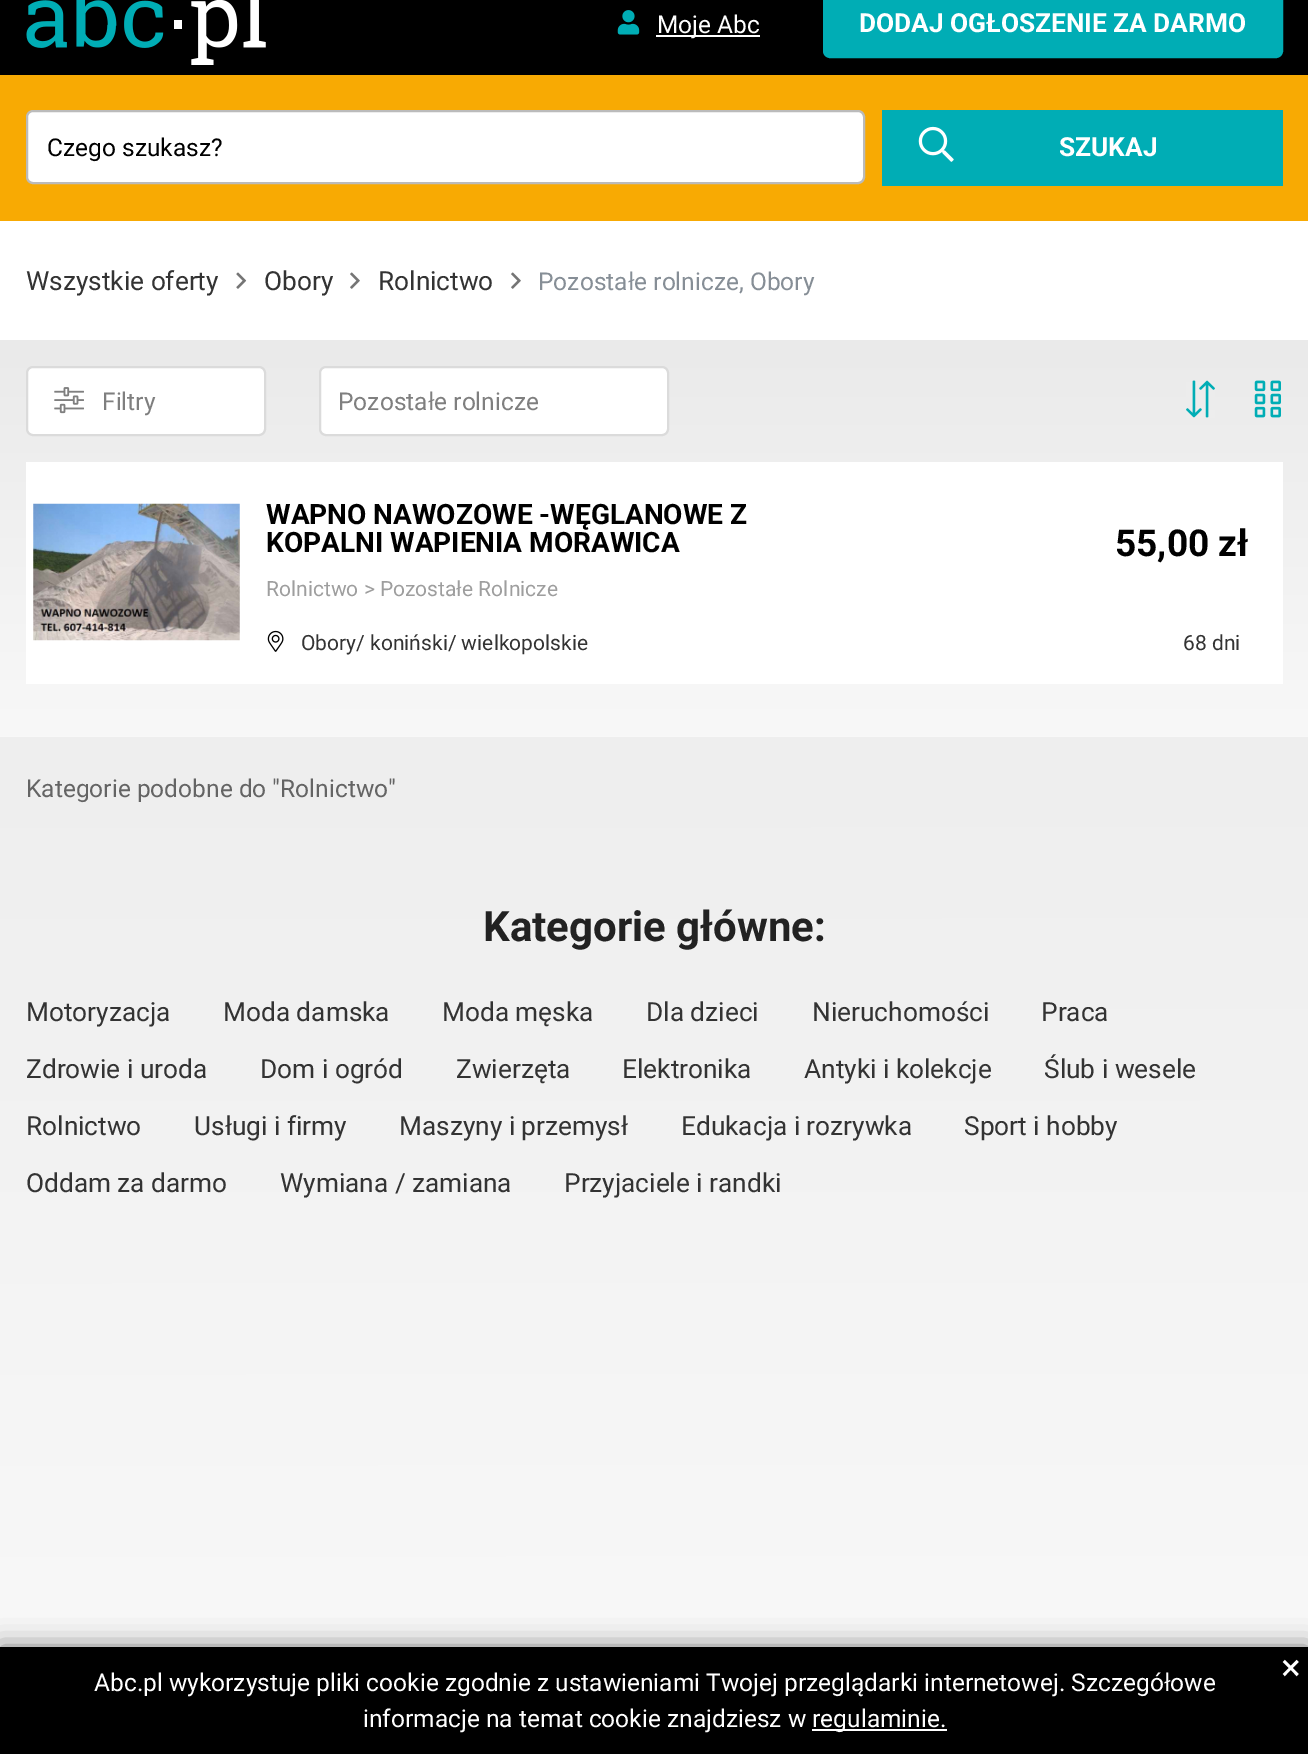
%!PS
<< /PageSize [1308 1754] /PageUsesTransparency true >> setpagedevice
/alpha { dup .setfillconstantalpha .setstrokeconstantalpha } def
/roundrect { 5 dict begin { /r /h /w /y /x } { exch def } forall
  x r add y moveto x w add y 2 copy h add r arct x w add y h add x 1 index r arct
  x y h add x y r arct x y 2 copy exch w add exch r arct closepath end } def
/shadow { 12 dict begin { /a /b /q /h /w /y /x } { exch def } forall gsave /was 0 def
  9 -2 -9 { dup b mul 4 div /e exch def 1 sub .425 mul 2.718 exch exp 1 add a .99 .min exch div /now exch def
    1 1 now sub 1 was sub div sub alpha /was now def
    w h .min e 2 mul add 0 gt { x e sub y e sub w e 2 mul add h e 2 mul add
      q e add b .6 mul add w h .min 2 div e add .min 0 .max roundrect fill } if } for grestore end } def
/picture { 5 dict begin { /h /w /y /x /name } { exch def } forall
  gsave x y translate w h scale
  w h 8 [w 0 0 h 0 0] name (r) file false 3 colorimage grestore end } def
0 .pushpdf14devicefilter
0 1754 translate 1 -1 scale
4 setmiterlimit
1 setgray
0 0 1308 1754 rectfill
0 setgray
0 0 1308 75 rectfill
(img1.rgb) 26 0 240 65 picture
(img2.rgb) 617 10 23 25 picture
1 setgray
656 35 104 2 rectfill
/Roboto-Regular [24.5 0 0 -24.5 0 0] selectfont
657 33 moveto (Moje Abc) show
0 0.678 0.71 setrgbcolor
824 -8 458 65 6 roundrect gsave fill grestore
2 setlinewidth
stroke
/Roboto-Bold [26.25 0 0 -26.25 0 0] selectfont
1 setgray
859 32 moveto (DODAJ OGŁOSZENIE ZA DARMO) show
0.973 0.667 0.012 setrgbcolor
0 75 1308 146 rectfill
1 setgray
27 111 837 72 6 roundrect gsave fill grestore
0.733 setgray
stroke
/Roboto-Regular [24.5 0 0 -24.5 0 0] selectfont
0 setgray
47 156 moveto (Czego szukasz?) show
0 0.678 0.71 setrgbcolor
882 110 401 76 rectfill
(img3.rgb) 918 126 36 36 picture
/Roboto-Bold [26.25 0 0 -26.25 0 0] selectfont
1 setgray
1059 156 moveto (SZUKAJ) show
/Roboto-Regular [26.25 0 0 -26.25 0 0] selectfont
0.2 setgray
26 290 moveto (Wszystkie oferty) show
(img4.rgb) 236 272 11 17 picture
264 290 moveto (Obory) show
(img5.rgb) 350 272 10 17 picture
378 290 moveto (Rolnictwo) show
(img5.rgb) 511 272 10 17 picture
/Roboto-Regular [24.5 0 0 -24.5 0 0] selectfont
0.525 0.557 0.588 setrgbcolor
538 290 moveto (Pozostałe rolnicze, Obory) show
gsave newpath 0 737 moveto 1308 737 lineto 1308 1647 lineto 0 1647 lineto closepath clip newpath
<< /ShadingType 2 /ColorSpace /DeviceRGB /Coords [654 339 655 1691] /Extend [true true] /Function << /FunctionType 2 /Domain [0 1] /C0 [0.918 0.918 0.918] /C1 [0.973 0.973 0.973] /N 1 >> >> shfill grestore
gsave newpath 0 340 moveto 1308 340 lineto 1308 737 lineto 0 737 lineto closepath clip newpath
<< /ShadingType 2 /ColorSpace /DeviceRGB /Coords [655 339 655 737] /Extend [true true] /Function << /FunctionType 2 /Domain [0 1] /C0 [0.918 0.918 0.918] /C1 [0.973 0.973 0.973] /N 1 >> >> shfill grestore
1 setgray
27 367 238 68 6 roundrect gsave fill grestore
0.859 setgray
stroke
(img6.rgb) 54 387 30 27 picture
0.498 setgray
102 410 moveto (Filtry) show
1 setgray
320 367 348 68 6 roundrect gsave fill grestore
0.859 setgray
stroke
0.498 setgray
338 410 moveto (Pozostałe rolnicze) show
(img7.rgb) 1186 380 29 38 picture
(img8.rgb) 1254 380 27 38 picture
1 setgray
26 462 1257 222 rectfill
(img9.rgb) 33 503 207 138 picture
/Roboto-Bold [28 0 0 -28 0 0] selectfont
0 setgray
266 524 moveto (WAPNO NAWOZOWE -WĘGLANOWE Z) show
266 552 moveto (KOPALNI WAPIENIA MORAWICA) show
/Roboto-Regular [21 0 0 -21 0 0] selectfont
0.62 setgray
266 596 moveto (Rolnictwo > Pozostałe Rolnicze) show
(img10.rgb) 267 630 17 22 picture
0.2 setgray
301 650 moveto (Obory/ koniński/ wielkopolskie) show
1183 650 moveto (68 dni) show
/Roboto-Bold [37 0 0 -37 0 0] selectfont
0 setgray
1115 556 moveto (55,00 zł) show
/Roboto-Regular [24.5 0 0 -24.5 0 0] selectfont
0.392 setgray
26 797 moveto (Kategorie podobne do "Rolnictwo") show
/Roboto-Bold [42 0 0 -42 0 0] selectfont
0.133 setgray
483 941 moveto (Kategorie główne:) show
/Roboto-Regular [26.25 0 0 -26.25 0 0] selectfont
0.2 setgray
26 1021 moveto (Motoryzacja) show
223 1021 moveto (Moda damska) show
442 1021 moveto (Moda męska) show
646 1021 moveto (Dla dzieci) show
812 1021 moveto (Nieruchomości) show
1041 1021 moveto (Praca) show
26 1078 moveto (Zdrowie i uroda) show
260 1078 moveto (Dom i ogród) show
456 1078 moveto (Zwierzęta) show
622 1078 moveto (Elektronika) show
804 1078 moveto (Antyki i kolekcje) show
1044 1078 moveto (Ślub i wesele) show
26 1135 moveto (Rolnictwo) show
194 1135 moveto (Usługi i firmy) show
399 1135 moveto (Maszyny i przemysł) show
681 1135 moveto (Edukacja i rozrywka) show
964 1135 moveto (Sport i hobby) show
26 1192 moveto (Oddam za darmo) show
280 1192 moveto (Wymiana / zamiana) show
564 1192 moveto (Przyjaciele i randki) show
0 setgray
0 1647 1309 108 0 13 0.5 shadow
0 1647 1308 107 rectfill
/Roboto-Regular [37 0 0 -37 0 0] selectfont
1 setgray
1281 1680 moveto (×) show
/Roboto-Regular [24.5 0 0 -24.5 0 0] selectfont
94 1691 moveto (Abc.pl wykorzystuje pliki cookie zgodnie z ustawieniami Twojej przeglądarki internetowej. Szczegółowe) show
363 1727 moveto (informacje na temat cookie znajdziesz w) show
812 1729 135 2 rectfill
812 1727 moveto (regulaminie.) show
.poppdf14devicefilter showpage
